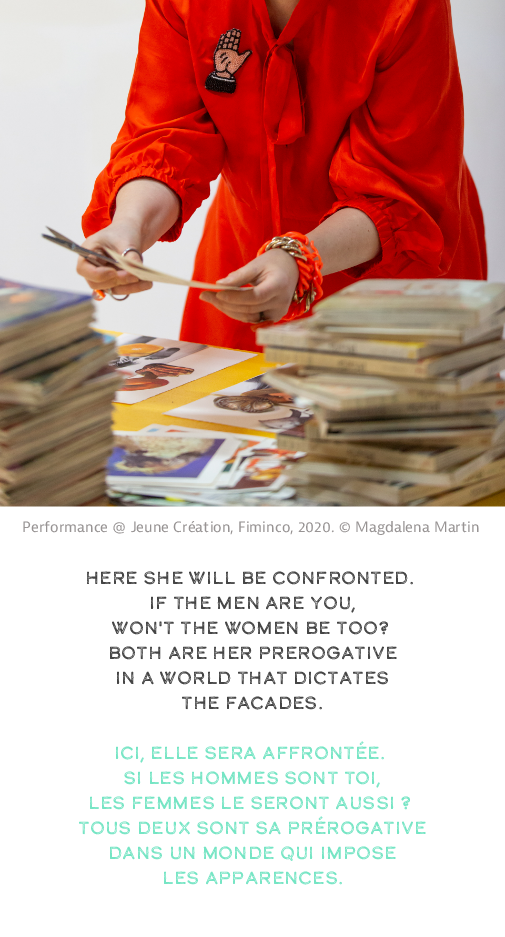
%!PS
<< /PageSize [505 937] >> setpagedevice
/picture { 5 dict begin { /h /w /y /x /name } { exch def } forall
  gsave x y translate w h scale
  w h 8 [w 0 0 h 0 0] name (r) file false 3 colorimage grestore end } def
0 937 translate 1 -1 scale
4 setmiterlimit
1 setgray
0 0 505 937 rectfill
(img1.rgb) 0 0 505 507 picture
/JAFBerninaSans-Regular [15 0 0 -15 0 0] selectfont
0.596 0.58 0.58 setrgbcolor
22 532 moveto (Performance @ Jeune Création, Fiminco, 2020. © Magdalena Martin) show
/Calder-Regular [17.5 0 0 -17.5 0 0] selectfont
0.271 setgray
85 584 moveto (Here she will be confronted.) show
149 609 moveto (If the men are you,) show
111 634 moveto (won't the women be too?) show
108 659 moveto (Both are her prerogative) show
115 684 moveto (In a world that dictates) show
181 709 moveto (the facades.) show
0.459 0.898 0.769 setrgbcolor
114 759 moveto (Ici, elle sera affrontée.) show
123 784 moveto (Si les hommes sont toi,) show
88 809 moveto (les femmes le seront aussi ?) show
78 834 moveto (Tous deux sont sa prérogative) show
108 859 moveto (Dans un monde qui impose) show
162 884 moveto (les apparences.) show
showpage
